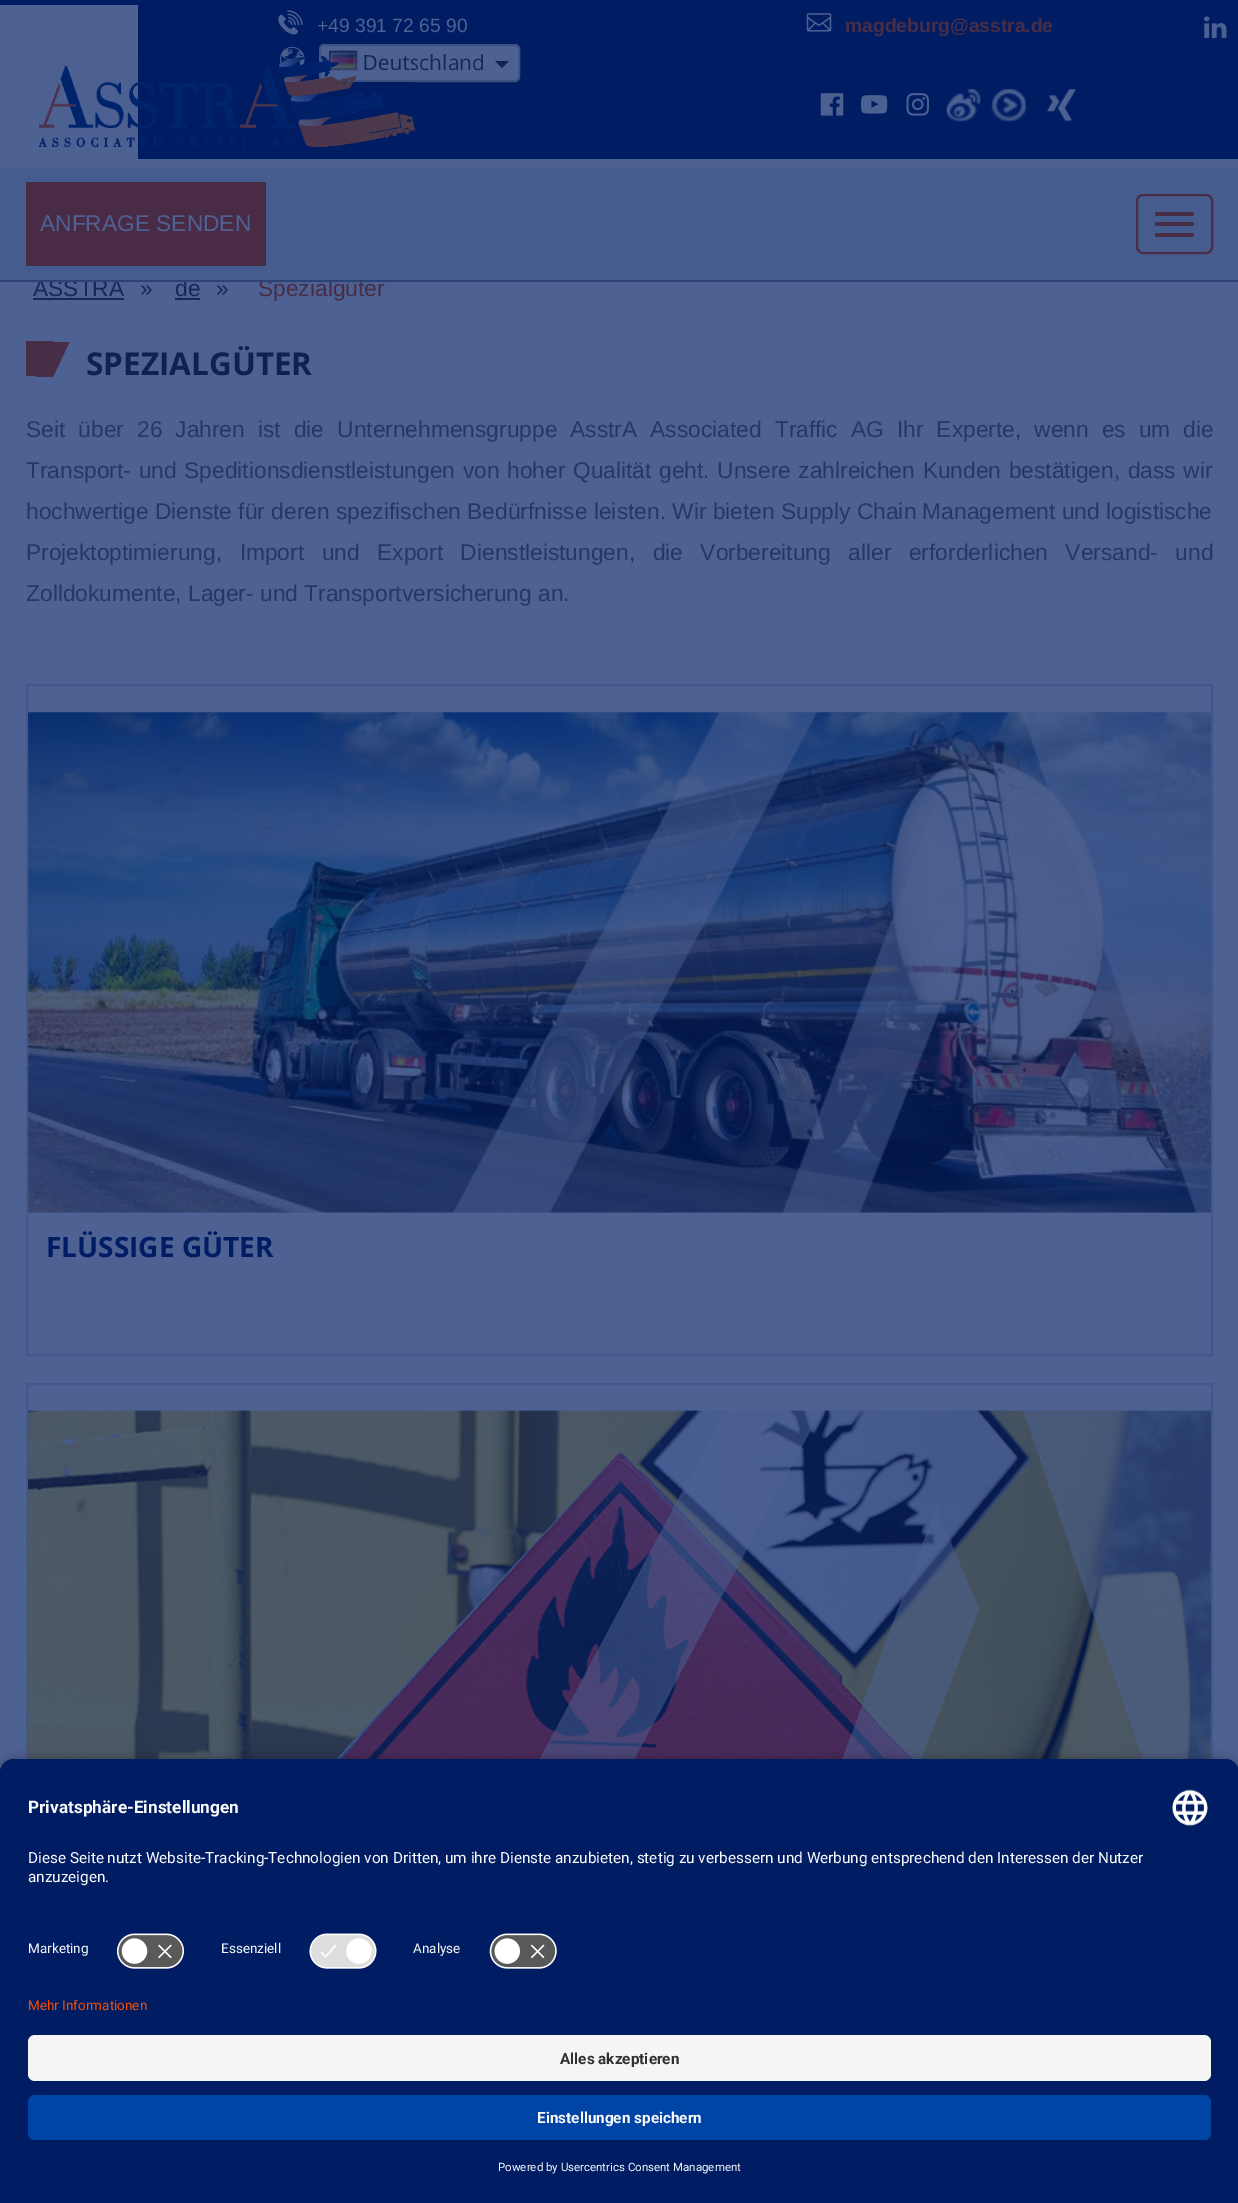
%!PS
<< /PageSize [1238 2203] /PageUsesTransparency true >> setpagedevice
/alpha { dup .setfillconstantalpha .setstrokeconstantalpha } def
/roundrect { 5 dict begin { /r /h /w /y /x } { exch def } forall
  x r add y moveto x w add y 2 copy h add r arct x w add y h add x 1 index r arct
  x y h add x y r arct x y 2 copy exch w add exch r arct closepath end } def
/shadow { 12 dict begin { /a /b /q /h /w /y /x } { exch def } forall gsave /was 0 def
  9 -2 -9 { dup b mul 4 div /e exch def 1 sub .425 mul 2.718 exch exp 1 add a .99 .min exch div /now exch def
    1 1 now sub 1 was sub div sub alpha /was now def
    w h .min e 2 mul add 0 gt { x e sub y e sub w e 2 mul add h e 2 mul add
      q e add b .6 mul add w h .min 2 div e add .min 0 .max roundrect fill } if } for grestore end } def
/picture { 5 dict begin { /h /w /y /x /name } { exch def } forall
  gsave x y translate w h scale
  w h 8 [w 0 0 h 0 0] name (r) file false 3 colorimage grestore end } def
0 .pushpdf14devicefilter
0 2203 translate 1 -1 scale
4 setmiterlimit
0.302 0.38 0.576 setrgbcolor
0 0 1238 2203 rectfill
0 0.114 0.392 setrgbcolor
0 0 1238 5 rectfill
138 5 1100 154 rectfill
(img1.rgb) 278 10 25 25 picture
/LiberationSans-Regular [19.25 0 0 -19.25 0 0] selectfont
0.302 0.38 0.576 setrgbcolor
317 32 moveto (+49 391 72 65 90) show
(img2.rgb) 806 13 26 19 picture
/LiberationSans-Bold [19.25 0 0 -19.25 0 0] selectfont
0.282 0.176 0.278 setrgbcolor
845 32 moveto (magdeburg@asstra.de) show
(img3.rgb) 1204 16 23 22 picture
(img4.rgb) 280 46 25 20 picture
0.302 0.38 0.576 setrgbcolor
320 45 199 36 4 roundrect gsave fill grestore
0.239 0.322 0.514 setrgbcolor
2 setlinewidth
stroke
(img5.rgb) 329 50 29 21 picture
/OpenSans-Regular [21 0 0 -21 0 0] selectfont
0.078 0.161 0.353 setrgbcolor
362 70 moveto (Deutschland) show
0.059 0.141 0.333 setrgbcolor
newpath 495 61 moveto 509 61 lineto 502 68 lineto closepath fill
(img6.rgb) 820 93 24 23 picture
(img7.rgb) 861 95 27 19 picture
(img8.rgb) 906 93 23 23 picture
(img9.rgb) 946 89 35 33 picture
(img10.rgb) 991 89 35 33 picture
(img11.rgb) 1046 89 30 33 picture
(img12.rgb) 39 56 376 91 picture
/LiberationSans-Regular [22.75 0 0 -22.75 0 0] selectfont
0.078 0.161 0.353 setrgbcolor
175 296 moveto (de) show
0.282 0.176 0.278 setrgbcolor
258 296 moveto (Spezialgüter) show
0.275 0.361 0.561 setrgbcolor
0 168 1238 112 rectfill
0.078 0.161 0.353 setrgbcolor
33 296 moveto (ASSTRA) show
0.173 0.255 0.455 setrgbcolor
0 280 1238 2 rectfill
0.29 0.169 0.275 setrgbcolor
26 182 240 84 rectfill
0.302 0.38 0.576 setrgbcolor
40 231 moveto (ANFRAGE SENDEN) show
0.282 0.176 0.278 setrgbcolor
1137 195 75 58 6 roundrect stroke
1155 212 39 4 2 roundrect fill
1155 222 39 4 2 roundrect fill
1155 233 39 4 2 roundrect fill
0.078 0.161 0.353 setrgbcolor
33 298 91 2 rectfill
140 296 moveto (») show
175 298 25 2 rectfill
216 296 moveto (») show
0.282 0.176 0.278 setrgbcolor
26 341 27 35 rectfill
newpath 52 342 moveto 69.5 342 lineto 53 377 lineto 35.5 377 lineto closepath fill
/OpenSans-Bold [31.5 0 0 -31.5 0 0] selectfont
0.051 0.129 0.325 setrgbcolor
86 375 moveto (SPEZIALGÜTER) show
/LiberationSans-Regular [22.75 0 0 -22.75 0 0] selectfont
0.137 0.216 0.412 setrgbcolor
26 437 moveto 6.75 0 32 (Seit über 26 Jahren ist die Unternehmensgruppe AsstrA Associated Traffic AG Ihr Experte, wenn es um die) widthshow
26 478 moveto 1.4 0 32 (Transport- und Speditionsdienstleistungen von hoher Qualität geht. Unsere zahlreichen Kunden bestätigen, dass wir) widthshow
26 519 moveto (hochwertige Dienste für deren spezifischen Bedürfnisse leisten. Wir bieten Supply Chain Management und logistische) show
26 560 moveto 11.25 0 32 (Projektoptimierung, Import und Export Dienstleistungen, die Vorbereitung aller erforderlichen Versand- und) widthshow
26 601 moveto (Zolldokumente, Lager- und Transportversicherung an.) show
0.263 0.345 0.541 setrgbcolor
27 685 1185 670 rectstroke
(img13.rgb) 28 712 1183 501 picture
/OpenSans-Bold [28 0 0 -28 0 0] selectfont
0 0.114 0.392 setrgbcolor
46 1257 moveto (FLÜSSIGE GÜTER) show
0.263 0.345 0.541 setrgbcolor
27 1384 1185 671 rectstroke
(img14.rgb) 28 1410 1183 349 picture
0 setgray
0 1764 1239 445 14 6 0.8 shadow
0 0.114 0.392 setrgbcolor
0 2000 1238 203 rectfill
/Roboto-Regular [13.5 0 0 -13.5 0 0] selectfont
0.973 0.298 0 setrgbcolor
28 2010 moveto (Mehr Informationen) show
0 0.114 0.392 setrgbcolor
newpath 14 1759 moveto 1225 1759 lineto 1232.5 1759 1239 1765.5 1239 1773 curveto 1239 2000 lineto 0 2000 lineto 0 1773 lineto 0 1765.5 6.5 1759 14 1759 curveto closepath fill
newpath 14 1759 moveto 1225 1759 lineto 1232.5 1759 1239 1765.5 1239 1773 curveto 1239 1923 lineto 0 1923 lineto 0 1773 lineto 0 1765.5 6.5 1759 14 1759 curveto closepath fill
/Roboto-Bold [17.25 0 0 -17.25 0 0] selectfont
0.98 setgray
28 1813 moveto (Privatsphäre-Einstellungen) show
(img15.rgb) 1172 1789 36 37 picture
/Roboto-Regular [15.3 0 0 -15.3 0 0] selectfont
28 1863 moveto (Diese Seite nutzt Website-Tracking-Technologien von Dritten, um ihre Dienste anzubieten, stetig zu verbessern und Werbung entsprechend den Interessen der Nutzer) show
28 1882 moveto (anzuzeigen.) show
/Roboto-Regular [13.5 0 0 -13.5 0 0] selectfont
28 1953 moveto (Marketing) show
(img16.rgb) 116 1933 69 36 picture
221 1953 moveto (Essenziell) show
(img17.rgb) 309 1933 68 36 picture
413 1953 moveto (Analyse) show
(img18.rgb) 489 1933 68 36 picture
0.961 setgray
28 2035 1183 46 7 roundrect fill
/Roboto-Bold [15.3 0 0 -15.3 0 0] selectfont
0.188 setgray
560 2064 moveto (Alles akzeptieren) show
0 0.271 0.647 setrgbcolor
28 2095 1183 45 7 roundrect fill
0.98 setgray
537 2123 moveto (Einstellungen speichern) show
/Roboto-Regular [11.5 0 0 -11.5 0 0] selectfont
498 2171 moveto (Powered by Usercentrics Consent Management) show
.poppdf14devicefilter showpage
